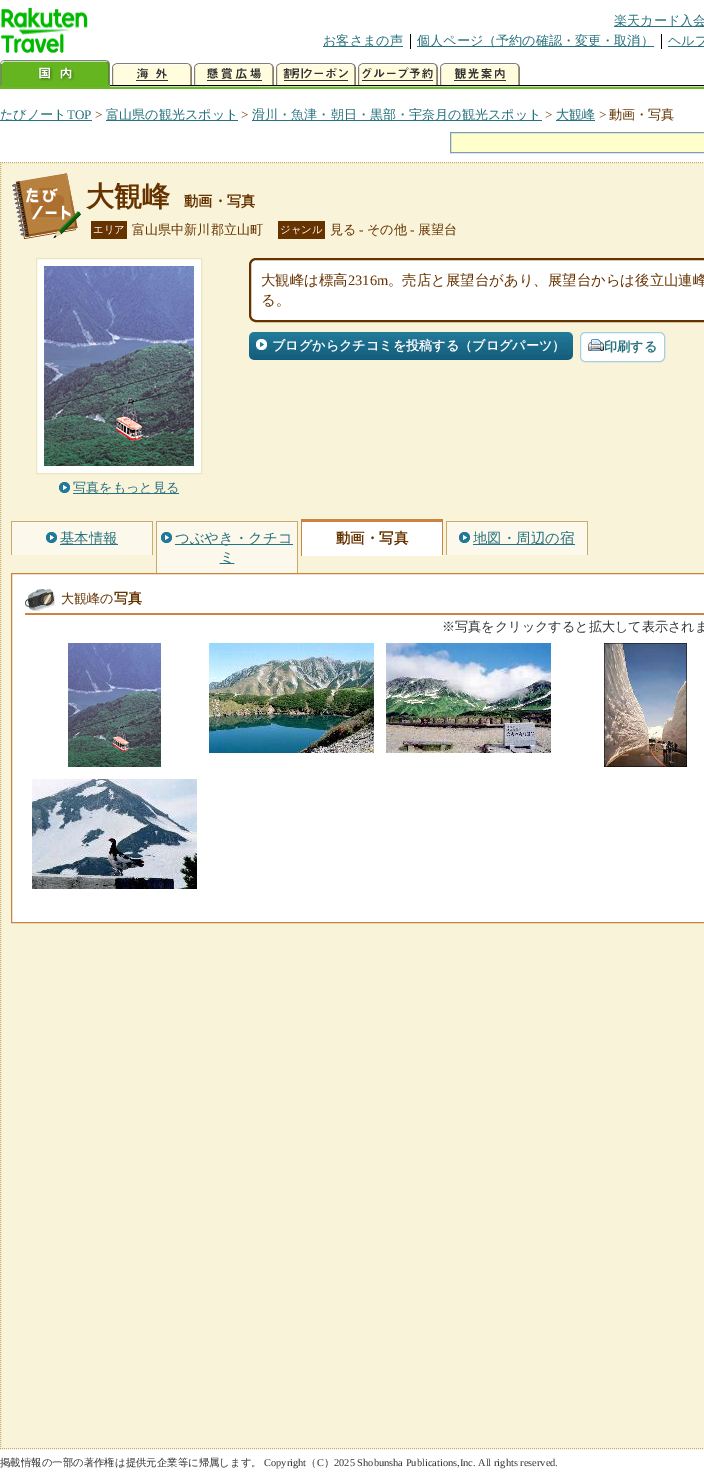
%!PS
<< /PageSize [704 1473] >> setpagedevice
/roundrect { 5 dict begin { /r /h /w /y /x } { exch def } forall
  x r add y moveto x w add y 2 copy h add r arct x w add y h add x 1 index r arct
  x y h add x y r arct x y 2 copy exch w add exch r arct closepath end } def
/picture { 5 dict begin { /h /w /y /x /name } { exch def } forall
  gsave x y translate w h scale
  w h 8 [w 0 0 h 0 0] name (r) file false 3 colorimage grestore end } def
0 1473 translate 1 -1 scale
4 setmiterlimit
1 setgray
0 0 704 1473 rectfill
(img1.rgb) 1 8 87 45 picture
0.149 0.447 0.494 setrgbcolor
614 26 90 1 rectfill
/WenQuanYiZenHei-Medium [13.1 0 0 -13.1 0 0] selectfont
614 25 moveto (楽天カード入会) show
0 setgray
410 34 1 15 rectfill
0.149 0.447 0.494 setrgbcolor
323 46 80 1 rectfill
323 45 moveto (お客さまの声) show
0 setgray
661 34 1 15 rectfill
0.149 0.447 0.494 setrgbcolor
417 46 237 1 rectfill
417 45 moveto (個人ページ（予約の確認・変更・取消）) show
668 46 36 1 rectfill
668 45 moveto (ヘルプ) show
(img2.rgb) 0 85 704 4 picture
(img3.rgb) 0 60 110 27 picture
(img4.rgb) 112 63 80 22 picture
(img5.rgb) 194 63 80 22 picture
(img6.rgb) 276 63 80 22 picture
(img7.rgb) 358 63 80 22 picture
(img8.rgb) 440 63 80 22 picture
0 120 92 1 rectfill
0 119 moveto (たびノート) show
/LiberationSerif-Regular [13.1 0 0 -13.1 0 0] selectfont
67 119 moveto (TOP) show
0.4 0.2 0 setrgbcolor
95 119 moveto (>) show
0.149 0.447 0.494 setrgbcolor
106 120 132 1 rectfill
/WenQuanYiZenHei-Medium [13.1 0 0 -13.1 0 0] selectfont
106 119 moveto (富山県の観光スポット) show
/LiberationSerif-Regular [13.1 0 0 -13.1 0 0] selectfont
0.4 0.2 0 setrgbcolor
241 119 moveto (>) show
0.149 0.447 0.494 setrgbcolor
252 120 290 1 rectfill
/WenQuanYiZenHei-Medium [13.1 0 0 -13.1 0 0] selectfont
252 119 moveto (滑川・魚津・朝日・黒部・宇奈月の観光スポット) show
/LiberationSerif-Regular [13.1 0 0 -13.1 0 0] selectfont
0.4 0.2 0 setrgbcolor
545 119 moveto (>) show
0.149 0.447 0.494 setrgbcolor
556 120 39 1 rectfill
/WenQuanYiZenHei-Medium [13.1 0 0 -13.1 0 0] selectfont
556 119 moveto (大観峰) show
/LiberationSerif-Regular [13.1 0 0 -13.1 0 0] selectfont
0.4 0.2 0 setrgbcolor
599 119 moveto (>) show
/WenQuanYiZenHei-Medium [13.1 0 0 -13.1 0 0] selectfont
609 119 moveto (動画・写真) show
1 1 0.8 setrgbcolor
newpath 450.5 132.5 moveto 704.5 132.5 lineto 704.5 152.5 lineto 450.5 152.5 lineto closepath gsave fill grestore
0.498 0.616 0.725 setrgbcolor
stroke
0.976 0.953 0.851 setrgbcolor
0 162 704 1287 rectfill
0.776 0.675 0.435 setrgbcolor
[1 1] 0 setdash
newpath 0 162.5 moveto 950 162.5 lineto stroke
newpath 0 1448.5 moveto 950 1448.5 lineto stroke
newpath 0.5 162 moveto 0.5 1449 lineto stroke
(img9.rgb) 12 173 69 66 picture
/WenQuanYiZenHei-Bold [28 0 0 -28 0 0] selectfont
0.4 0.2 0 setrgbcolor
86 206 moveto (大観峰) show
/WenQuanYiZenHei-Bold [14.25 0 0 -14.25 0 0] selectfont
184 206 moveto (動画・写真) show
91 221 36 18 rectfill
/WenQuanYiZenHei-Medium [10.4 0 0 -10.4 0 0] selectfont
1 setgray
93 233 moveto (エリア) show
/WenQuanYiZenHei-Medium [13.1 0 0 -13.1 0 0] selectfont
0.4 0.2 0 setrgbcolor
132 234 moveto (富山県中新川郡立山町) show
278 221 47 18 rectfill
/WenQuanYiZenHei-Medium [10.4 0 0 -10.4 0 0] selectfont
1 setgray
280 233 moveto (ジャンル) show
/WenQuanYiZenHei-Medium [13.1 0 0 -13.1 0 0] selectfont
0.4 0.2 0 setrgbcolor
330 234 moveto (見る) show
/LiberationSerif-Regular [13.1 0 0 -13.1 0 0] selectfont
359 234 moveto (-) show
/WenQuanYiZenHei-Medium [13.1 0 0 -13.1 0 0] selectfont
367 234 moveto (その他) show
/LiberationSerif-Regular [13.1 0 0 -13.1 0 0] selectfont
410 234 moveto (-) show
/WenQuanYiZenHei-Medium [13.1 0 0 -13.1 0 0] selectfont
418 234 moveto (展望台) show
1 setgray
250 259 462 62 6 roundrect gsave fill grestore
0.4 0.2 0 setrgbcolor
2 setlinewidth
[] 0 setdash
stroke
/WenQuanYiZenHei-Medium [14.4 0 0 -14.4 0 0] selectfont
261 285 moveto (大観峰は標高) show
/LiberationSerif-Regular [14.4 0 0 -14.4 0 0] selectfont
348 285 moveto (2316m) show
/WenQuanYiZenHei-Medium [14.4 0 0 -14.4 0 0] selectfont
388 285 moveto (。売店と展望台があり、展望台からは後立山連峰) show
261 305 moveto (る。) show
(img10.rgb) 249 332 324 28 picture
(img11.rgb) 256 339 11 11 picture
/WenQuanYiZenHei-Bold [13.1 0 0 -13.1 0 0] selectfont
1 setgray
272 350 moveto (ブログからクチコミを投稿する（ブログパーツ）) show
580.5 332.5 84 29 4.5 roundrect gsave fill grestore
0.647 0.812 0.898 setrgbcolor
1 setlinewidth
stroke
(img12.rgb) 588 339 16 12 picture
0.149 0.447 0.494 setrgbcolor
604 351 moveto (印刷する) show
1 setgray
newpath 36.5 258.5 moveto 201.5 258.5 lineto 201.5 473.5 lineto 36.5 473.5 lineto closepath gsave fill grestore
0.922 0.902 0.753 setrgbcolor
stroke
(img13.rgb) 44 266 150 200 picture
(img14.rgb) 59 482 11 11 picture
0.149 0.447 0.494 setrgbcolor
73 493 106 1 rectfill
/WenQuanYiZenHei-Medium [13.1 0 0 -13.1 0 0] selectfont
73 492 moveto (写真をもっと見る) show
0.988 0.976 0.925 setrgbcolor
12 522 140 33 rectfill
0.776 0.675 0.435 setrgbcolor
11 521 142 1 rectfill
152 521 1 34 rectfill
11 521 1 34 rectfill
(img15.rgb) 46 532 11 11 picture
0.149 0.447 0.494 setrgbcolor
60 544 58 1 rectfill
/WenQuanYiZenHei-Medium [14.4 0 0 -14.4 0 0] selectfont
60 543 moveto (基本情報) show
0.988 0.976 0.925 setrgbcolor
157 522 140 51 rectfill
0.776 0.675 0.435 setrgbcolor
156 521 142 1 rectfill
297 521 1 53 rectfill
156 521 1 53 rectfill
(img16.rgb) 161 532 74 32 picture
0.149 0.447 0.494 setrgbcolor
175 544 118 1 rectfill
175 543 moveto (つぶやき・クチコ) show
220 562 moveto (ミ) show
1 setgray
302 522 140 33 rectfill
0.792 0.514 0.251 setrgbcolor
301 519 142 3 rectfill
442 519 1 37 rectfill
1 setgray
301 555 142 1 rectfill
0.792 0.514 0.251 setrgbcolor
301 519 1 37 rectfill
/WenQuanYiZenHei-Bold [14.4 0 0 -14.4 0 0] selectfont
0.4 0.2 0 setrgbcolor
336 543 moveto (動画・写真) show
0.988 0.976 0.925 setrgbcolor
447 522 140 33 rectfill
0.776 0.675 0.435 setrgbcolor
446 521 142 1 rectfill
587 521 1 34 rectfill
446 521 1 34 rectfill
(img15.rgb) 459 532 11 11 picture
0.149 0.447 0.494 setrgbcolor
473 544 102 1 rectfill
/WenQuanYiZenHei-Medium [14.4 0 0 -14.4 0 0] selectfont
473 543 moveto (地図・周辺の宿) show
1 setgray
newpath 11.5 573.5 moveto 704.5 573.5 lineto 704.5 922.5 lineto 11.5 922.5 lineto closepath gsave fill grestore
0.792 0.514 0.251 setrgbcolor
stroke
(img17.rgb) 25 589 30 22 picture
25 613 679 2 rectfill
/WenQuanYiZenHei-Medium [13.1 0 0 -13.1 0 0] selectfont
0.4 0.2 0 setrgbcolor
61 603 moveto (大観峰の) show
/WenQuanYiZenHei-Bold [14 0 0 -14 0 0] selectfont
114 603 moveto (写真) show
/WenQuanYiZenHei-Medium [13.1 0 0 -13.1 0 0] selectfont
0.2 setgray
442 631 moveto (※写真をクリックすると拡大して表示されま) show
(img18.rgb) 68 643 93 124 picture
(img19.rgb) 209 643 165 110 picture
(img20.rgb) 386 643 165 110 picture
(img21.rgb) 604 643 83 124 picture
(img22.rgb) 32 779 165 110 picture
/WenQuanYiZenHei-Medium [10.4 0 0 -10.4 0 0] selectfont
0 1466 moveto (掲載情報の一部の著作権は提供元企業等に帰属します。) show
/LiberationSerif-Regular [10.4 0 0 -10.4 0 0] selectfont
264 1466 moveto (Copyright) show
/WenQuanYiZenHei-Medium [10.4 0 0 -10.4 0 0] selectfont
306 1466 moveto (（) show
/LiberationSerif-Regular [10.4 0 0 -10.4 0 0] selectfont
317 1466 moveto (C) show
/WenQuanYiZenHei-Medium [10.4 0 0 -10.4 0 0] selectfont
324 1466 moveto (）) show
/LiberationSerif-Regular [10.4 0 0 -10.4 0 0] selectfont
334 1466 moveto (2025 Shobunsha Publications,Inc. All rights reserved.) show
showpage
